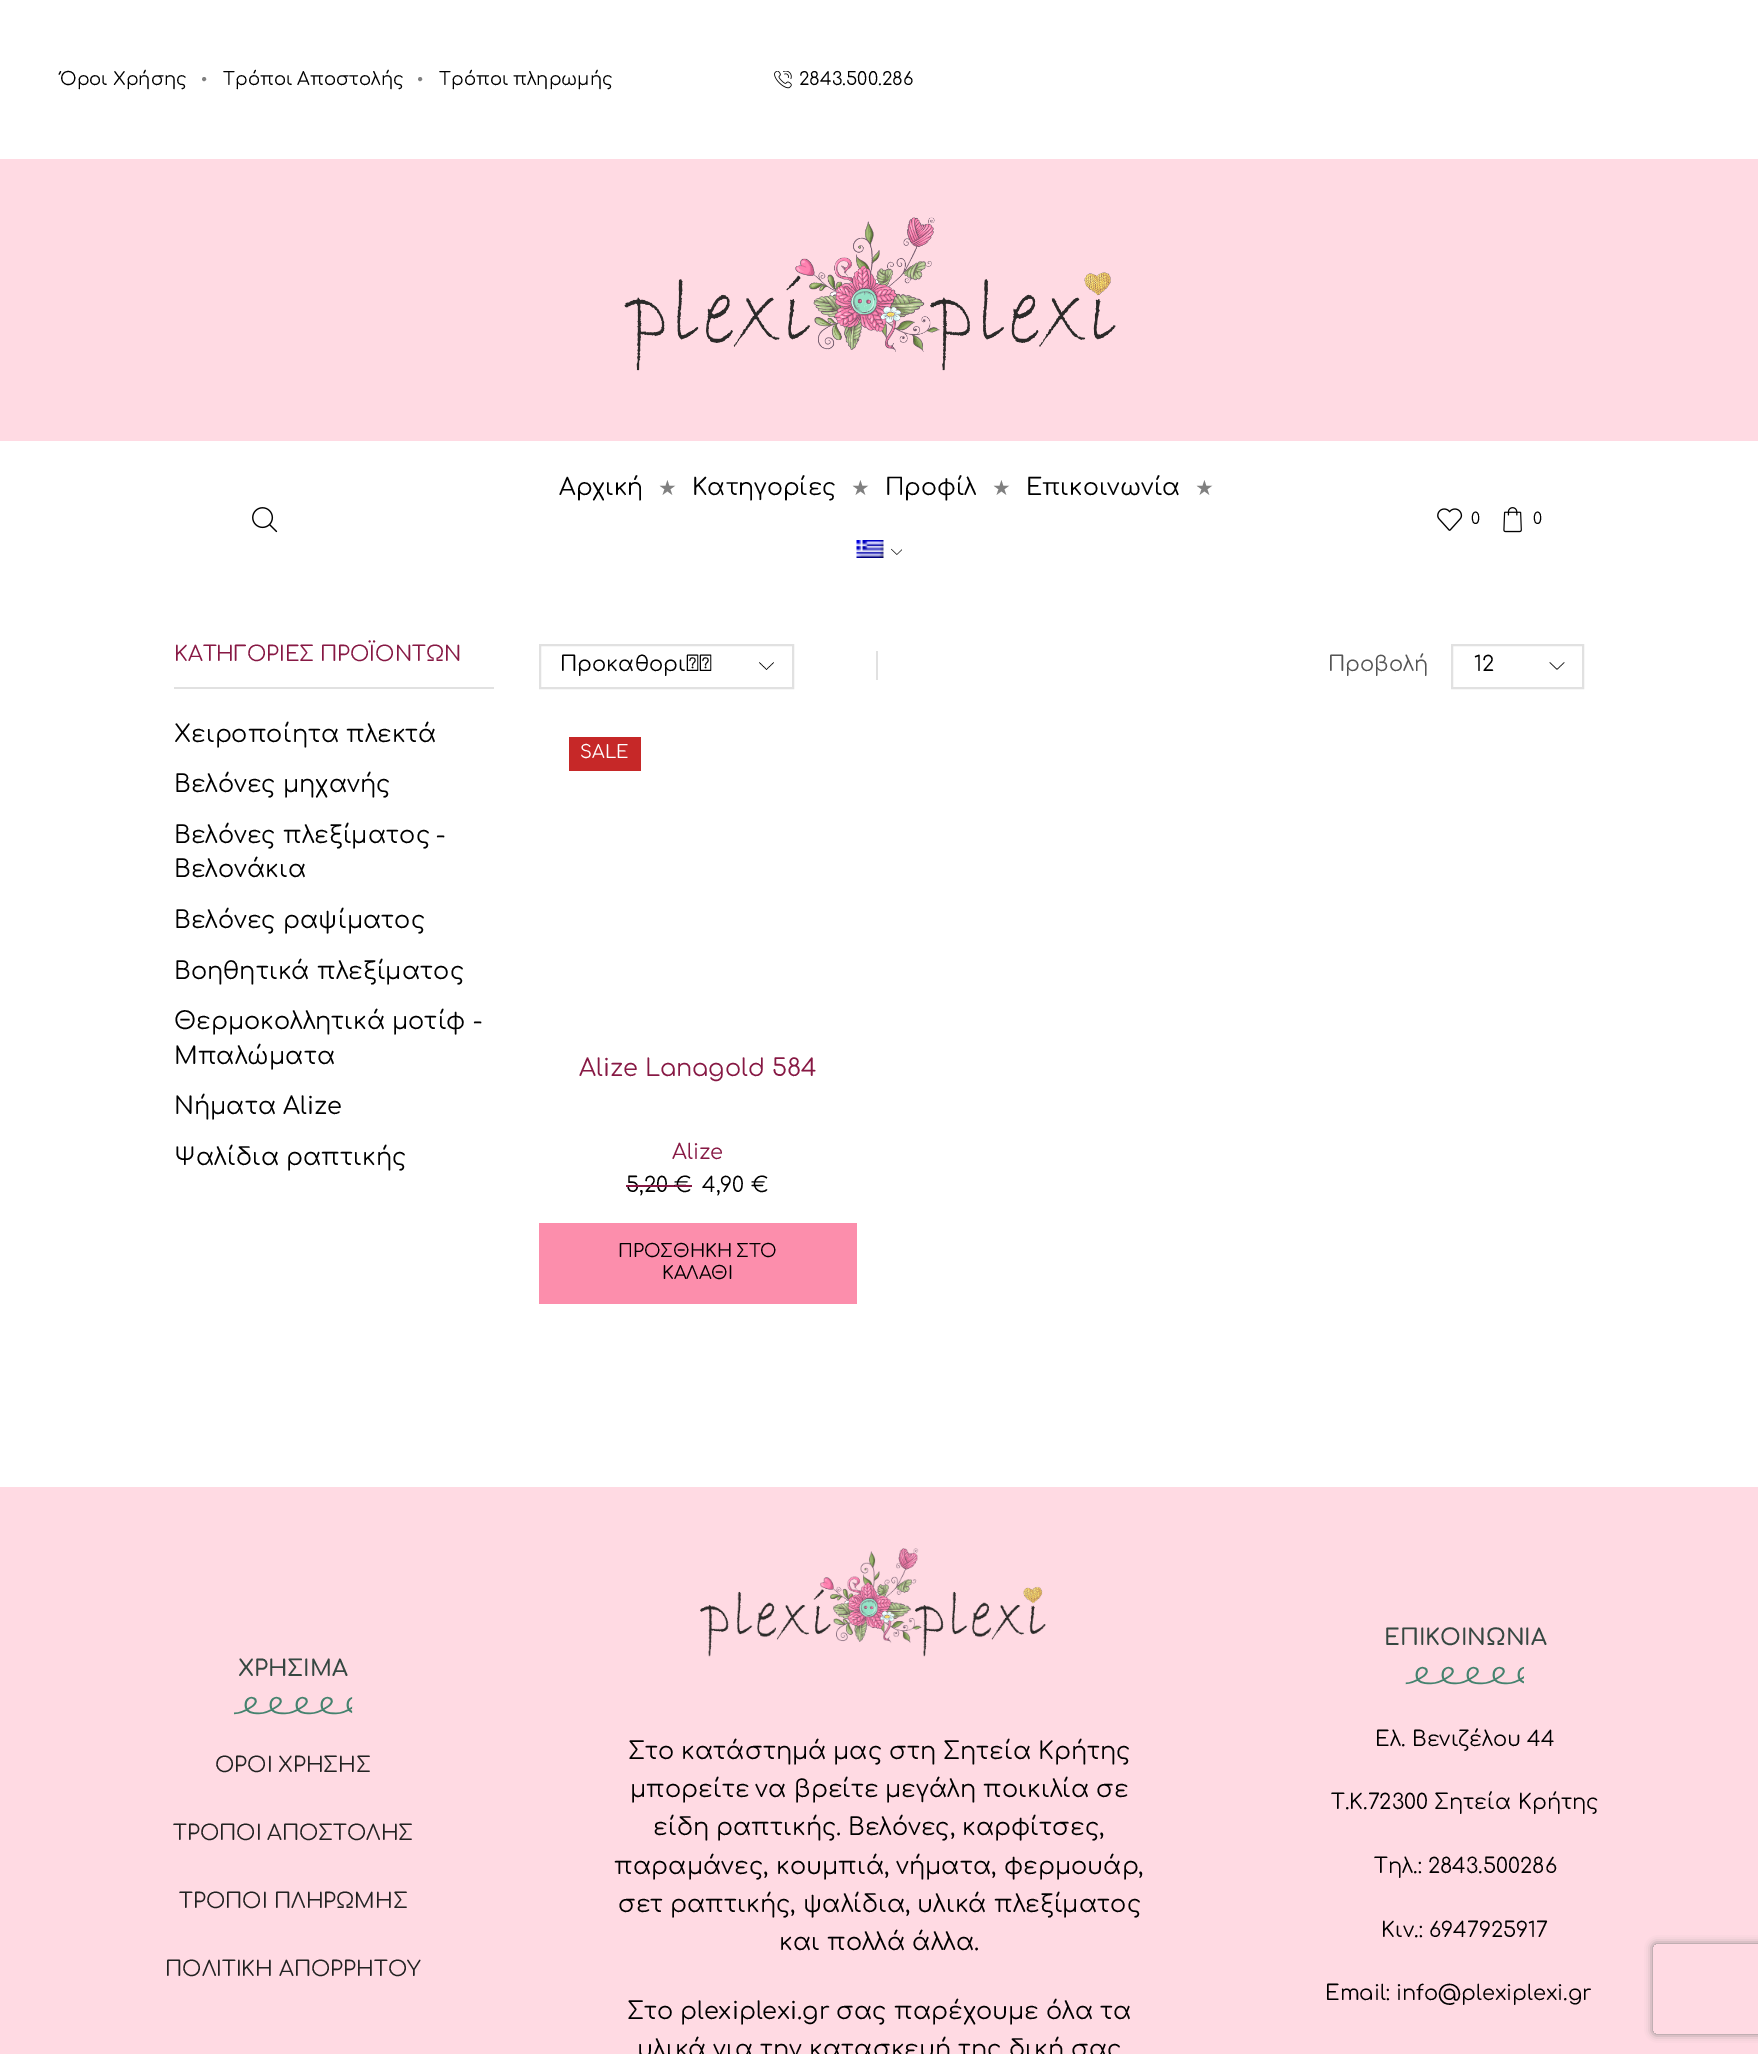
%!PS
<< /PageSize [1758 2054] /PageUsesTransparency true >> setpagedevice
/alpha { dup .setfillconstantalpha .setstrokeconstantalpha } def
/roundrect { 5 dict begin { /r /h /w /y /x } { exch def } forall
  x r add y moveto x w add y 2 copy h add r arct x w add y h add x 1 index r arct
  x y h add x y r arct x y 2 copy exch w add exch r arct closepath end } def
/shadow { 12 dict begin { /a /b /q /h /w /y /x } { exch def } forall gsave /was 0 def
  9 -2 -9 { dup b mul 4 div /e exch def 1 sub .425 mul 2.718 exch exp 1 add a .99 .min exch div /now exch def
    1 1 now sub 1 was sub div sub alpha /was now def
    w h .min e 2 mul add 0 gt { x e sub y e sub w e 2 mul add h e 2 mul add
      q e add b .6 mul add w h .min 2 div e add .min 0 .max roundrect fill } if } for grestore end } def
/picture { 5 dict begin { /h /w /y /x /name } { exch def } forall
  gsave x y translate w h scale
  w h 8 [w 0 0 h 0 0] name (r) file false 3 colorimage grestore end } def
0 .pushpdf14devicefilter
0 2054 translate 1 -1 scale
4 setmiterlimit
1 setgray
0 0 1758 2054 rectfill
/Comfortaa-Regular [18 0 0 -18 0 0] selectfont
0 setgray
60 85 moveto (Όροι) show
113 85 moveto (Χρήσης) show
/LiberationSerif-Regular [18 0 0 -18 0 0] selectfont
0.502 setgray
201 85 moveto (•) show
/Comfortaa-Regular [18 0 0 -18 0 0] selectfont
0 setgray
223 85 moveto (Τρόποι) show
297 85 moveto (Αποστολής) show
/LiberationSerif-Regular [18 0 0 -18 0 0] selectfont
0.502 setgray
417 85 moveto (•) show
/Comfortaa-Regular [18 0 0 -18 0 0] selectfont
0 setgray
439 85 moveto (Τρόποι) show
513 85 moveto (πληρωμής) show
(img1.rgb) 774 71 18 18 picture
/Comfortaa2-Regular [18 0 0 -18 0 0] selectfont
799 85 moveto (2843.500.286) show
1 0.855 0.89 setrgbcolor
0 159 1758 282 rectfill
(img2.rgb) 624 217 492 154 picture
/Comfortaa-Regular [23.5 0 0 -23.5 0 0] selectfont
0 setgray
559 495 moveto (Αρχική) show
/DejaVuSans-Regular [21 0 0 -21 0 0] selectfont
0.502 setgray
658 495 moveto (★) show
/Comfortaa-Regular [23.5 0 0 -23.5 0 0] selectfont
0 setgray
692 495 moveto (Κατηγορίες) show
/DejaVuSans-Regular [21 0 0 -21 0 0] selectfont
0.502 setgray
851 495 moveto (★) show
/Comfortaa-Regular [23.5 0 0 -23.5 0 0] selectfont
0 setgray
885 495 moveto (Προφίλ) show
/DejaVuSans-Regular [21 0 0 -21 0 0] selectfont
0.502 setgray
992 495 moveto (★) show
/Comfortaa-Regular [23.5 0 0 -23.5 0 0] selectfont
0 setgray
1026 495 moveto (Επικοινωνία) show
/DejaVuSans-Regular [21 0 0 -21 0 0] selectfont
0.502 setgray
1195 495 moveto (★) show
(img3.rgb) 856 540 28 18 picture
(img4.rgb) 891 548 11 7 picture
(img5.rgb) 252 507 26 26 picture
(img6.rgb) 1437 508 26 23 picture
/Comfortaa2-Regular [16 0 0 -16 0 0] selectfont
0 setgray
1471 524 moveto (0) show
(img7.rgb) 1503 507 19 26 picture
1533 524 moveto (0) show
0.882 setgray
174 687 320 2 rectfill
/Comfortaa-Regular [21 0 0 -21 0 0] selectfont
0.529 0.098 0.267 setrgbcolor
174 661 moveto (ΚΑΤΗΓΟΡΙΕΣ) show
320 661 moveto (ΠΡΟΪΟΝΤΩΝ) show
/Comfortaa-Regular [24 0 0 -24 0 0] selectfont
0 setgray
174 742 moveto (Χειροποίητα) show
346 742 moveto (πλεκτά) show
174 792 moveto (Βελόνες) show
283 792 moveto (μηχανής) show
174 843 moveto (Βελόνες) show
283 843 moveto (πλεξίματος) show
/Comfortaa2-Regular [24 0 0 -24 0 0] selectfont
436 843 moveto (-) show
/Comfortaa-Regular [24 0 0 -24 0 0] selectfont
174 877 moveto (Βελονάκια) show
174 928 moveto (Βελόνες) show
283 928 moveto (ραψίματος) show
174 979 moveto (Βοηθητικά) show
317 979 moveto (πλεξίματος) show
174 1029 moveto (Θερμοκολλητικά) show
392 1029 moveto (μοτίφ) show
/Comfortaa2-Regular [24 0 0 -24 0 0] selectfont
473 1029 moveto (-) show
/Comfortaa-Regular [24 0 0 -24 0 0] selectfont
174 1064 moveto (Μπαλώματα) show
174 1114 moveto (Νήματα) show
/Comfortaa2-Regular [24 0 0 -24 0 0] selectfont
283 1114 moveto (Alize) show
/Comfortaa-Regular [24 0 0 -24 0 0] selectfont
174 1165 moveto (Ψαλίδια) show
286 1165 moveto (ραπτικής) show
(img8.rgb) 759 662 15 8 picture
0.882 setgray
2 setlinewidth
540 645 253 43 rectstroke
/Comfortaa-Regular [21 0 0 -21 0 0] selectfont
0 setgray
560 671 moveto (Προκαθορι...) show
0.882 setgray
876 651 2 29 rectfill
0.333 setgray
1328 671 moveto (Προβολή) show
(img9.rgb) 1549 662 16 8 picture
0.882 setgray
1452 645 131 43 rectstroke
/Comfortaa2-Regular [21 0 0 -21 0 0] selectfont
0 setgray
1474 671 moveto (12) show
0.776 0.157 0.157 setrgbcolor
569 737 72 34 rectfill
/Comfortaa2-Regular [18 0 0 -18 0 0] selectfont
1 setgray
580 758 moveto (SALE) show
/Comfortaa2-Regular [24 0 0 -24 0 0] selectfont
0.529 0.098 0.267 setrgbcolor
579 1076 moveto (Alize Lanagold 584) show
/Comfortaa2-Regular [21 0 0 -21 0 0] selectfont
672 1159 moveto (Alize) show
0 setgray
626 1192 moveto (5,20) show
0.529 0.098 0.267 setrgbcolor
626 1185 49 2 rectfill
0 setgray
674 1192 moveto (€) show
0.529 0.098 0.267 setrgbcolor
675 1185 17 2 rectfill
0 setgray
702 1192 moveto (4,90 €) show
0.988 0.557 0.675 setrgbcolor
539 1223 318 81 rectfill
/Comfortaa-Regular [18 0 0 -18 0 0] selectfont
0 setgray
618 1257 moveto (ΠΡΟΣΘΗΚΗ) show
736 1257 moveto (ΣΤΟ) show
662 1279 moveto (ΚΑΛΑΘΙ) show
1 0.855 0.89 setrgbcolor
0 1487 1758 567 rectfill
/Comfortaa-SemiBold [22.5 0 0 -22.5 0 0] selectfont
0.212 0.278 0.255 setrgbcolor
238 1676 moveto (ΧΡΗΣΙΜΑ) show
(img10.rgb) 234 1696 119 19 picture
/Comfortaa-Regular [21 0 0 -21 0 0] selectfont
0.133 setgray
215 1772 moveto (ΟΡΟΙ) show
278 1772 moveto (ΧΡΗΣΗΣ) show
173 1840 moveto (ΤΡΟΠΟΙ) show
267 1840 moveto (ΑΠΟΣΤΟΛΗΣ) show
179 1908 moveto (ΤΡΟΠΟΙ) show
274 1908 moveto (ΠΛΗΡΩΜΗΣ) show
165 1976 moveto (ΠΟΛΙΤΙΚΗ) show
279 1976 moveto (ΑΠΟΡΡΗΤΟΥ) show
(img11.rgb) 700 1548 346 109 picture
/Comfortaa-Regular [24 0 0 -24 0 0] selectfont
0 setgray
628 1759 moveto (Στο) show
681 1759 moveto (κατάστημά) show
833 1759 moveto (μας) show
889 1759 moveto (στη) show
943 1759 moveto (Σητεία) show
1038 1759 moveto (Κρήτης) show
630 1797 moveto (μπορείτε) show
755 1797 moveto (να) show
794 1797 moveto (βρείτε) show
885 1797 moveto (μεγάλη) show
983 1797 moveto (ποικιλία) show
1096 1797 moveto (σε) show
653 1835 moveto (είδη) show
716 1835 moveto (ραπτικής) show
/Comfortaa2-Regular [24 0 0 -24 0 0] selectfont
836 1835 moveto (.) show
/Comfortaa-Regular [24 0 0 -24 0 0] selectfont
848 1835 moveto (Βελόνες) show
/Comfortaa2-Regular [24 0 0 -24 0 0] selectfont
950 1835 moveto (,) show
/Comfortaa-Regular [24 0 0 -24 0 0] selectfont
962 1835 moveto (καρφίτσες) show
/Comfortaa2-Regular [24 0 0 -24 0 0] selectfont
1099 1835 moveto (,) show
/Comfortaa-Regular [24 0 0 -24 0 0] selectfont
614 1874 moveto (παραμάνες) show
/Comfortaa2-Regular [24 0 0 -24 0 0] selectfont
763 1874 moveto (,) show
/Comfortaa-Regular [24 0 0 -24 0 0] selectfont
776 1874 moveto (κουμπιά) show
/Comfortaa2-Regular [24 0 0 -24 0 0] selectfont
884 1874 moveto (,) show
/Comfortaa-Regular [24 0 0 -24 0 0] selectfont
896 1874 moveto (νήματα) show
/Comfortaa2-Regular [24 0 0 -24 0 0] selectfont
991 1874 moveto (,) show
/Comfortaa-Regular [24 0 0 -24 0 0] selectfont
1004 1874 moveto (φερμουάρ) show
/Comfortaa2-Regular [24 0 0 -24 0 0] selectfont
1138 1874 moveto (,) show
/Comfortaa-Regular [24 0 0 -24 0 0] selectfont
618 1912 moveto (σετ) show
670 1912 moveto (ραπτικής) show
/Comfortaa2-Regular [24 0 0 -24 0 0] selectfont
790 1912 moveto (,) show
/Comfortaa-Regular [24 0 0 -24 0 0] selectfont
803 1912 moveto (ψαλίδια) show
/Comfortaa2-Regular [24 0 0 -24 0 0] selectfont
905 1912 moveto (,) show
/Comfortaa-Regular [24 0 0 -24 0 0] selectfont
917 1912 moveto (υλικά) show
994 1912 moveto (πλεξίματος) show
779 1950 moveto (και) show
827 1950 moveto (πολλά) show
912 1950 moveto (άλλα) show
/Comfortaa2-Regular [24 0 0 -24 0 0] selectfont
974 1950 moveto (.) show
/Comfortaa-Regular [24 0 0 -24 0 0] selectfont
627 2019 moveto (Στο) show
/Comfortaa2-Regular [24 0 0 -24 0 0] selectfont
680 2019 moveto (plexiplexi.gr) show
/Comfortaa-Regular [24 0 0 -24 0 0] selectfont
836 2019 moveto (σας) show
894 2019 moveto (παρέχουμε) show
1046 2019 moveto (όλα) show
1100 2019 moveto (τα) show
637 2057 moveto (υλικά) show
713 2057 moveto (για) show
760 2057 moveto (την) show
809 2057 moveto (κατασκευή) show
958 2057 moveto (της) show
1009 2057 moveto (δική) show
1071 2057 moveto (σας) show
/Comfortaa-SemiBold [22.5 0 0 -22.5 0 0] selectfont
0.212 0.278 0.255 setrgbcolor
1384 1645 moveto (ΕΠΙΚΟΙΝΩΝΙΑ) show
(img12.rgb) 1405 1666 119 19 picture
/Comfortaa-Regular [21 0 0 -21 0 0] selectfont
0 setgray
1375 1746 moveto (Ελ) show
/Comfortaa2-Regular [21 0 0 -21 0 0] selectfont
1401 1746 moveto (.) show
/Comfortaa-Regular [21 0 0 -21 0 0] selectfont
1412 1746 moveto (Βενιζέλου) show
/Comfortaa2-Regular [21 0 0 -21 0 0] selectfont
1527 1746 moveto (44) show
/Comfortaa-Regular [21 0 0 -21 0 0] selectfont
1331 1809 moveto (Τ) show
/Comfortaa2-Regular [21 0 0 -21 0 0] selectfont
1345 1809 moveto (.) show
/Comfortaa-Regular [21 0 0 -21 0 0] selectfont
1349 1809 moveto (Κ) show
/Comfortaa2-Regular [21 0 0 -21 0 0] selectfont
1363 1809 moveto (.72300) show
/Comfortaa-Regular [21 0 0 -21 0 0] selectfont
1434 1809 moveto (Σητεία) show
1518 1809 moveto (Κρήτης) show
1374 1873 moveto (Τηλ) show
/Comfortaa2-Regular [21 0 0 -21 0 0] selectfont
1413 1873 moveto (.: 2843.500286) show
/Comfortaa-Regular [21 0 0 -21 0 0] selectfont
1381 1937 moveto (Κιν) show
/Comfortaa2-Regular [21 0 0 -21 0 0] selectfont
1414 1937 moveto (.: 6947925917) show
1325 2000 moveto (Email: info@plexiplexi.gr) show
gsave
newpath 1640 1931 moveto 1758 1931 lineto 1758 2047 lineto 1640 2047 lineto closepath 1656 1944 moveto 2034 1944 lineto 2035.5 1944 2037 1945.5 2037 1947 curveto 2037 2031 lineto 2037 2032.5 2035.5 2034 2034 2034 curveto 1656 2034 lineto 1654.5 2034 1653 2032.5 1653 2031 curveto 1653 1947 lineto 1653 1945.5 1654.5 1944 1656 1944 curveto closepath eoclip newpath
0.502 setgray
1653 1944 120 90 3 4 1 shadow
grestore
.poppdf14devicefilter showpage
